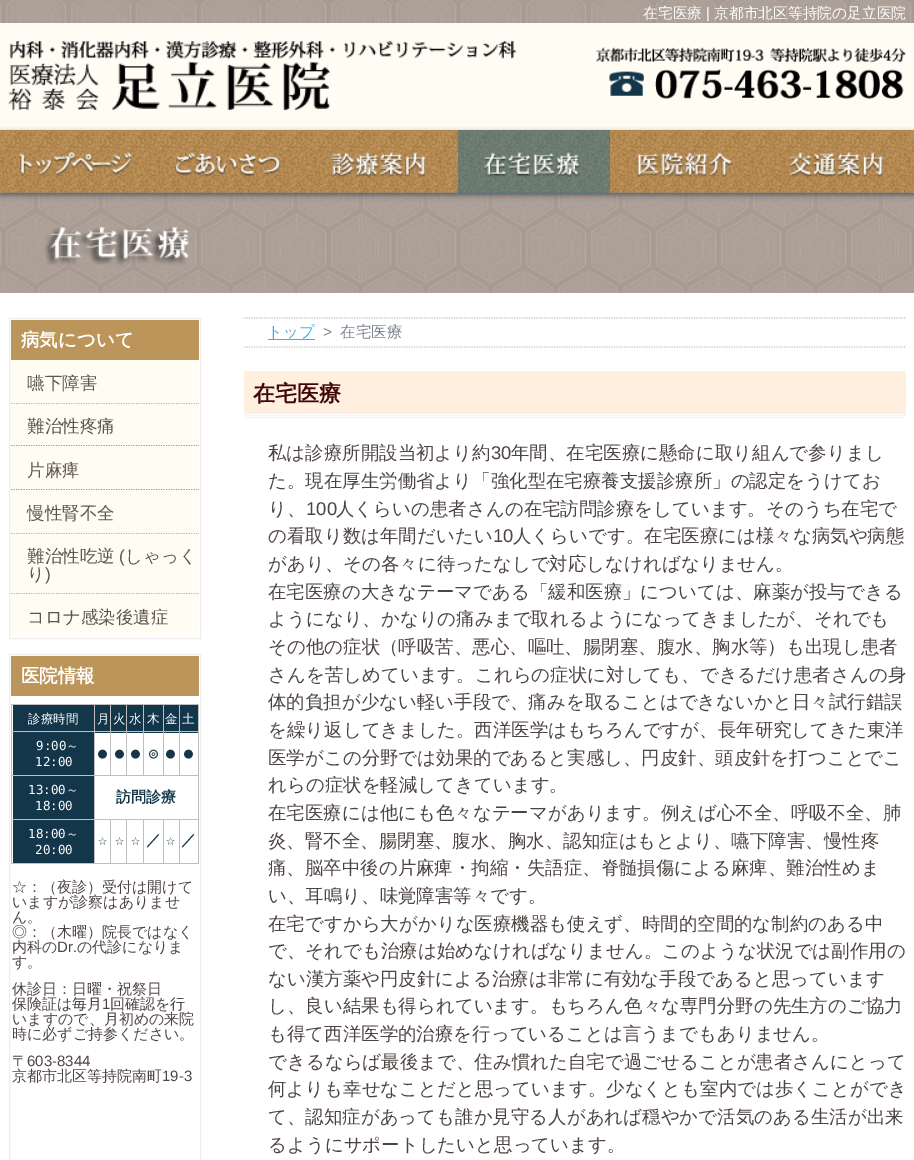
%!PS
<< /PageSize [914 1160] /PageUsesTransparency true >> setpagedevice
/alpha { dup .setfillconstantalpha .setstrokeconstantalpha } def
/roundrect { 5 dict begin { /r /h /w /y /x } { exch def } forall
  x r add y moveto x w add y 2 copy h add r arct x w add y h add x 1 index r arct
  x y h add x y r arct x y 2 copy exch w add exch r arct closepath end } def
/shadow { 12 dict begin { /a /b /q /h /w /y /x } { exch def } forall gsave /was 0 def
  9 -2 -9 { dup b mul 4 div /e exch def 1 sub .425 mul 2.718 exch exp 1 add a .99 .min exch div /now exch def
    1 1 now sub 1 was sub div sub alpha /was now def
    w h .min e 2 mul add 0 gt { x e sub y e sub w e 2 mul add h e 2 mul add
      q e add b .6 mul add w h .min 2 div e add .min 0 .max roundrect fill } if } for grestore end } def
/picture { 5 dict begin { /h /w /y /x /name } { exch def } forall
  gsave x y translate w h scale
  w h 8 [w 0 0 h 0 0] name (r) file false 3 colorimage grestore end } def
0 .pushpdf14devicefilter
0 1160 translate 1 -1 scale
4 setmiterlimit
1 setgray
0 0 914 1160 rectfill
(img1.rgb) 0 0 914 293 picture
/WenQuanYiZenHei-Medium [14.75 0 0 -14.75 0 0] selectfont
643 18 moveto (在宅医療) show
/LiberationSans-Regular [14.75 0 0 -14.75 0 0] selectfont
706 18 moveto (|) show
/WenQuanYiZenHei-Medium [14.75 0 0 -14.75 0 0] selectfont
714 18 moveto (京都市北区等持院の足立医院) show
1 0.988 0.957 setrgbcolor
0 23 914 107 rectfill
(img2.rgb) 8 41 509 69 picture
(img3.rgb) 596 47 310 52 picture
0.333 setgray
0 133 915 62 0 3 1 shadow
(img4.rgb) 0 130 914 63 picture
(img5.rgb) 18 152 115 25 picture
(img6.rgb) 175 152 106 25 picture
(img7.rgb) 331 152 96 26 picture
0.4 alpha
0 0.4 0.6 setrgbcolor
458 130 152 63 rectfill
1 alpha
(img8.rgb) 483 152 97 25 picture
(img9.rgb) 636 152 97 26 picture
(img10.rgb) 788 152 96 26 picture
(img11.rgb) 44 226 146 40 picture
0.933 setgray
9.5 318.5 191 320 rectstroke
0.733 0.584 0.349 setrgbcolor
11 320 188 40 rectfill
/WenQuanYiZenHei-Bold [18.45 0 0 -18.45 0 0] selectfont
1 setgray
21 346 moveto (病気について) show
0.584 setgray
1.2 setlinewidth
[1.25 1.25] 0 setdash
newpath 11 403 moveto 199 403 lineto stroke
1 0.988 0.957 setrgbcolor
11 360 188 43 rectfill
/WenQuanYiZenHei-Medium [17.5 0 0 -17.5 0 0] selectfont
0.361 0.333 0.314 setrgbcolor
27 389 moveto (嚥下障害) show
0.584 setgray
newpath 11 445.5 moveto 199 445.5 lineto stroke
1 0.988 0.957 setrgbcolor
11 404 188 41 rectfill
0.361 0.333 0.314 setrgbcolor
27 432 moveto (難治性疼痛) show
0.584 setgray
newpath 11 489.5 moveto 199 489.5 lineto stroke
1 0.988 0.957 setrgbcolor
11 446 188 43 rectfill
0.361 0.333 0.314 setrgbcolor
27 476 moveto (片麻痺) show
0.584 setgray
newpath 11 533 moveto 199 533 lineto stroke
1 0.988 0.957 setrgbcolor
11 490 188 43 rectfill
0.361 0.333 0.314 setrgbcolor
27 519 moveto (慢性腎不全) show
0.584 setgray
newpath 11 593 moveto 199 593 lineto stroke
1 0.988 0.957 setrgbcolor
11 534 188 59 rectfill
0.361 0.333 0.314 setrgbcolor
27 562 moveto (難治性吃逆) show
/LiberationSans-Regular [17.5 0 0 -17.5 0 0] selectfont
119 562 moveto (\() show
/WenQuanYiZenHei-Medium [17.5 0 0 -17.5 0 0] selectfont
125 562 moveto (しゃっく) show
27 580 moveto (り) show
/LiberationSans-Regular [17.5 0 0 -17.5 0 0] selectfont
45 580 moveto (\)) show
1 0.988 0.957 setrgbcolor
11 594 188 42 rectfill
/WenQuanYiZenHei-Medium [17.5 0 0 -17.5 0 0] selectfont
0.361 0.333 0.314 setrgbcolor
27 623 moveto (コロナ感染後遺症) show
0.933 setgray
1 setlinewidth
[] 0 setdash
9.5 654.5 191 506 rectstroke
0.733 0.584 0.349 setrgbcolor
11 656 188 40 rectfill
/WenQuanYiZenHei-Bold [18.45 0 0 -18.45 0 0] selectfont
1 setgray
21 682 moveto (医院情報) show
0.075 0.212 0.29 setrgbcolor
111 705 32 28 rectfill
0.745 setgray
179 704 20 1 rectfill
0.075 0.212 0.29 setrgbcolor
164 705 15 28 rectfill
180 705 18 28 rectfill
0.745 setgray
179 731 20 1 rectfill
94 775 105 1 rectfill
179 731 1 45 rectfill
163 731 17 1 rectfill
179 704 1 29 rectfill
163 704 17 1 rectfill
0.075 0.212 0.29 setrgbcolor
144 705 19 28 rectfill
0.745 setgray
163 731 1 45 rectfill
143 731 21 1 rectfill
163 704 1 29 rectfill
143 704 21 1 rectfill
143 731 1 45 rectfill
126 731 18 1 rectfill
143 704 1 29 rectfill
126 704 18 1 rectfill
126 731 1 45 rectfill
110 731 18 1 rectfill
126 704 1 29 rectfill
110 704 18 1 rectfill
0.075 0.212 0.29 setrgbcolor
95 705 15 28 rectfill
0.745 setgray
110 731 1 45 rectfill
94 731 17 1 rectfill
110 704 1 29 rectfill
0.075 0.212 0.29 setrgbcolor
13 705 81 70 rectfill
0.745 setgray
94 704 17 1 rectfill
179 819 20 1 rectfill
198 819 1 45 rectfill
179 863 20 1 rectfill
179 819 1 45 rectfill
163 819 17 1 rectfill
163 863 17 1 rectfill
163 819 1 45 rectfill
143 819 21 1 rectfill
143 863 21 1 rectfill
143 819 1 45 rectfill
126 819 18 1 rectfill
126 863 18 1 rectfill
126 819 1 45 rectfill
110 819 18 1 rectfill
110 863 18 1 rectfill
110 819 1 45 rectfill
94 819 17 1 rectfill
94 863 17 1 rectfill
94 819 1 45 rectfill
11 819 84 1 rectfill
94 775 1 45 rectfill
11 775 84 1 rectfill
94 731 1 45 rectfill
11 731 84 1 rectfill
94 704 1 29 rectfill
11 704 84 1 rectfill
11 863 84 1 rectfill
11 819 1 45 rectfill
11 775 1 45 rectfill
11 731 1 45 rectfill
11 704 1 29 rectfill
/WenQuanYiZenHei-Medium [12.5 0 0 -12.5 0 0] selectfont
1 setgray
28 723 moveto (診療時間) show
97 723 moveto (月 火 水) show
147 723 moveto (木) show
165 723 moveto (金) show
0.745 setgray
198 775 1 45 rectfill
198 731 1 45 rectfill
198 704 1 29 rectfill
1 setgray
182 723 moveto (土) show
/DejaVuSansMono-Regular [12.5 0 0 -12.5 0 0] selectfont
36 750 moveto (9:00) show
/WenQuanYiZenHei-Medium [12.5 0 0 -12.5 0 0] selectfont
66 750 moveto (～) show
/DejaVuSansMono-Regular [12.5 0 0 -12.5 0 0] selectfont
35 766 moveto (12:00) show
/DejaVuSansMono-Bold [15 0 0 -15 0 0] selectfont
0.075 0.212 0.29 setrgbcolor
98 758 moveto (●) show
115 758 moveto (●) show
131 758 moveto (●) show
149 758 moveto (◎) show
166 758 moveto (●) show
184 758 moveto (●) show
13 776 81 43 rectfill
/DejaVuSansMono-Regular [12.5 0 0 -12.5 0 0] selectfont
1 setgray
28 794 moveto (13:00) show
/WenQuanYiZenHei-Medium [12.5 0 0 -12.5 0 0] selectfont
66 794 moveto (～) show
/DejaVuSansMono-Regular [12.5 0 0 -12.5 0 0] selectfont
35 810 moveto (18:00) show
/WenQuanYiZenHei-Bold [15 0 0 -15 0 0] selectfont
0.075 0.212 0.29 setrgbcolor
116 802 moveto (訪問診療) show
13 820 81 43 rectfill
/DejaVuSansMono-Regular [12.5 0 0 -12.5 0 0] selectfont
1 setgray
28 838 moveto (18:00) show
/WenQuanYiZenHei-Medium [12.5 0 0 -12.5 0 0] selectfont
66 838 moveto (～) show
/DejaVuSansMono-Regular [12.5 0 0 -12.5 0 0] selectfont
35 854 moveto (20:00) show
/DejaVuSansMono-Bold [15 0 0 -15 0 0] selectfont
0.075 0.212 0.29 setrgbcolor
98 845 moveto (☆) show
115 845 moveto (☆) show
131 845 moveto (☆) show
/WenQuanYiZenHei-Bold [15 0 0 -15 0 0] selectfont
146 845 moveto (／) show
/DejaVuSansMono-Bold [15 0 0 -15 0 0] selectfont
166 845 moveto (☆) show
/WenQuanYiZenHei-Bold [15 0 0 -15 0 0] selectfont
181 845 moveto (／) show
/WenQuanYiZenHei-Medium [15 0 0 -15 0 0] selectfont
0.298 0.267 0.259 setrgbcolor
12 892 moveto (☆：（夜診）受付は開けて) show
12 907 moveto (いますが診察はありませ) show
12 922 moveto (ん。) show
12 937 moveto (◎：（木曜）院長ではなく) show
12 952 moveto (内科の) show
/LiberationSans-Regular [15 0 0 -15 0 0] selectfont
57 952 moveto (Dr.) show
/WenQuanYiZenHei-Medium [15 0 0 -15 0 0] selectfont
77 952 moveto (の代診になりま) show
12 967 moveto (す。) show
12 994 moveto (休診日：日曜・祝祭日) show
12 1009 moveto (保険証は毎月) show
/LiberationSans-Regular [15 0 0 -15 0 0] selectfont
102 1009 moveto (1) show
/WenQuanYiZenHei-Medium [15 0 0 -15 0 0] selectfont
110 1009 moveto (回確認を行) show
12 1024 moveto (いますので、月初めの来院) show
12 1039 moveto (時に必ずご持参ください。) show
12 1066 moveto (〒) show
/LiberationSans-Regular [15 0 0 -15 0 0] selectfont
27 1066 moveto (603-8344) show
/WenQuanYiZenHei-Medium [15 0 0 -15 0 0] selectfont
12 1081 moveto (京都市北区等持院南町) show
/LiberationSans-Regular [15 0 0 -15 0 0] selectfont
162 1081 moveto (19-3) show
0.788 setgray
1.2 setlinewidth
[1.25 1.25] 0 setdash
newpath 244 318 moveto 906 318 lineto stroke
newpath 244 347 moveto 906 347 lineto stroke
/WenQuanYiZenHei-Medium [15.5 0 0 -15.5 0 0] selectfont
0.255 0.671 0.906 setrgbcolor
267 337 moveto (トップ) show
268 339 47 1 rectfill
/LiberationSans-Regular [15.5 0 0 -15.5 0 0] selectfont
0.482 0.514 0.557 setrgbcolor
323 337 moveto (>) show
/WenQuanYiZenHei-Medium [15.5 0 0 -15.5 0 0] selectfont
340 337 moveto (在宅医療) show
0.996 0.937 0.871 setrgbcolor
244 371 662 47 rectfill
1 setgray
244 414 662 1 rectfill
244 416 662 1 rectfill
/WenQuanYiZenHei-Bold [22 0 0 -22 0 0] selectfont
0.255 0.027 0.027 setrgbcolor
253 401 moveto (在宅医療) show
/WenQuanYiZenHei-Medium [18.45 0 0 -18.45 0 0] selectfont
0.298 0.267 0.259 setrgbcolor
268 459 moveto (私は診療所開設当初より約) show
/LiberationSans-Regular [18.45 0 0 -18.45 0 0] selectfont
491 459 moveto (30) show
/WenQuanYiZenHei-Medium [18.45 0 0 -18.45 0 0] selectfont
511 459 moveto (年間、在宅医療に懸命に取り組んで参りまし) show
268 487 moveto (た。現在厚生労働省より「強化型在宅療養支援診療所」の認定をうけてお) show
268 515 moveto (り、) show
/LiberationSans-Regular [18.45 0 0 -18.45 0 0] selectfont
306 515 moveto (100) show
/WenQuanYiZenHei-Medium [18.45 0 0 -18.45 0 0] selectfont
336 515 moveto (人くらいの患者さんの在宅訪問診療をしています。そのうち在宅で) show
268 542 moveto (の看取り数は年間だいたい) show
/LiberationSans-Regular [18.45 0 0 -18.45 0 0] selectfont
493 542 moveto (10) show
/WenQuanYiZenHei-Medium [18.45 0 0 -18.45 0 0] selectfont
513 542 moveto (人くらいです。在宅医療には様々な病気や病態) show
268 570 moveto (があり、その各々に待ったなしで対応しなければなりません。) show
268 598 moveto (在宅医療の大きなテーマである「緩和医療」については、麻薬が投与できる) show
268 625 moveto (ようになり、かなりの痛みまで取れるようになってきましたが、それでも) show
268 653 moveto (その他の症状（呼吸苦、悪心、嘔吐、腸閉塞、腹水、胸水等）も出現し患者) show
268 681 moveto (さんを苦しめています。これらの症状に対しても、できるだけ患者さんの身) show
268 708 moveto (体的負担が少ない軽い手段で、痛みを取ることはできないかと日々試行錯誤) show
268 736 moveto (を繰り返してきました。西洋医学はもちろんですが、長年研究してきた東洋) show
268 764 moveto (医学がこの分野では効果的であると実感し、円皮針、頭皮針を打つことでこ) show
268 791 moveto (れらの症状を軽減してきています。) show
268 819 moveto (在宅医療には他にも色々なテーマがあります。例えば心不全、呼吸不全、肺) show
268 847 moveto (炎、腎不全、腸閉塞、腹水、胸水、認知症はもとより、嚥下障害、慢性疼) show
268 874 moveto (痛、脳卒中後の片麻痺・拘縮・失語症、脊髄損傷による麻痺、難治性めま) show
268 902 moveto (い、耳鳴り、味覚障害等々です。) show
268 930 moveto (在宅ですから大がかりな医療機器も使えず、時間的空間的な制約のある中) show
268 957 moveto (で、それでも治療は始めなければなりません。このような状況では副作用の) show
268 985 moveto (ない漢方薬や円皮針による治療は非常に有効な手段であると思っています) show
268 1012 moveto (し、良い結果も得られています。もちろん色々な専門分野の先生方のご協力) show
268 1040 moveto (も得て西洋医学的治療を行っていることは言うまでもありません。) show
268 1068 moveto (できるならば最後まで、住み慣れた自宅で過ごせることが患者さんにとって) show
268 1095 moveto (何よりも幸せなことだと思っています。少なくとも室内では歩くことができ) show
268 1123 moveto (て、認知症があっても誰か見守る人があれば穏やかで活気のある生活が出来) show
268 1151 moveto (るようにサポートしたいと思っています。) show
.poppdf14devicefilter showpage
